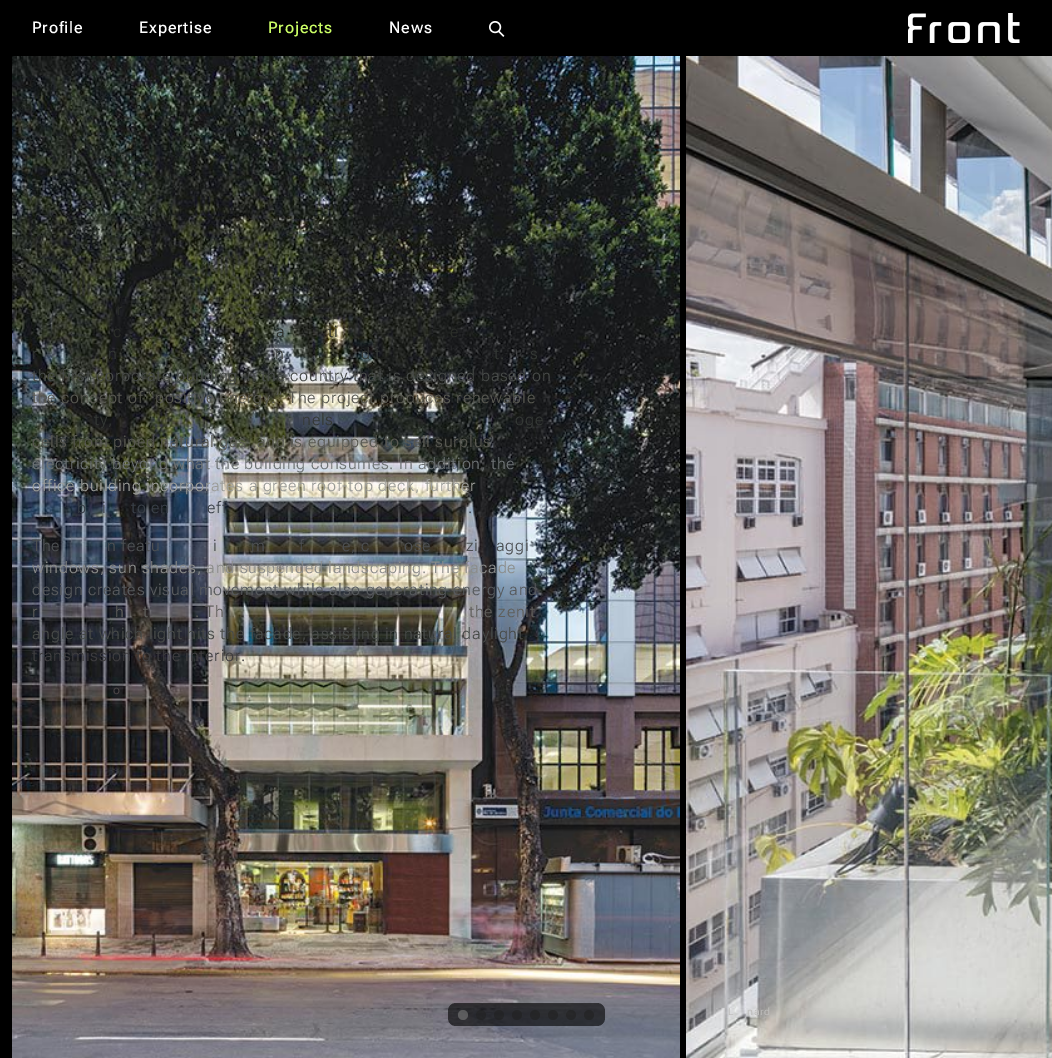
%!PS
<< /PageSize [1052 1058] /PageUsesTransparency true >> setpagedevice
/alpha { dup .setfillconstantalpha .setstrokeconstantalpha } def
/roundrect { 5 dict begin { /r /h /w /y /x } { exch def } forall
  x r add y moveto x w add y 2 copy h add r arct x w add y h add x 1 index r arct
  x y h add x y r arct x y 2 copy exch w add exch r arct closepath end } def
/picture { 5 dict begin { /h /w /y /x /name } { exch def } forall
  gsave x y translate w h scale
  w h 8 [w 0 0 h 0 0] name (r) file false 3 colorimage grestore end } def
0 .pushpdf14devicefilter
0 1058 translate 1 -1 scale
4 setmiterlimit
0 setgray
0 0 1052 1058 rectfill
/RobotoFlex-Medium [16 0 0 -16 0 0] selectfont
1 setgray
32 33 moveto 0.8 0 (Profile) ashow
139 33 moveto 0.8 0 (Expertise) ashow
0.8 1 0.4 setrgbcolor
268 33 moveto 0.8 0 (Projects) ashow
1 setgray
389 33 moveto 0.8 0 (News) ashow
(img1.rgb) 489 21 16 16 picture
(img2.rgb) 908 13 112 30 picture
(img3.rgb) 12 56 668 1002 picture
/RobotoFlex-Light [16 0 0 -16 0 0] selectfont
0.173 0.184 0.165 setrgbcolor
532 293 moveto 0.8 0 (’) ashow
117 315 moveto 0.8 0 (r) ashow
113 337 moveto 0.8 0 (c) ashow
276 337 moveto 0.8 0 (a) ashow
328 337 moveto 0.8 0 (ti) ashow
386 337 moveto 0.8 0 (-) ashow
450 337 moveto 0.8 0 (e) ashow
0.204 0.22 0.208 setrgbcolor
32 359 moveto 0.8 0 (r) ashow
108 359 moveto 0.8 0 (n) ashow
275 359 moveto 0.8 0 (n) ashow
361 359 moveto 0.8 0 (d t) ashow
494 359 moveto 0.8 0 (t.) ashow
530 359 moveto 0.8 0 (s) ashow
0.278 0.29 0.282 setrgbcolor
32 381 moveto 0.8 0 (the first corporate building in the country that is designed based on) ashow
0.345 0.345 0.318 setrgbcolor
32 403 moveto 0.8 0 (the concept of “positive energy.” The project produces renewable) ashow
0.204 0.22 0.208 setrgbcolor
94 425 moveto 0.8 0 (ty,) ashow
302 425 moveto 0.8 0 (nels) ashow
515 425 moveto 0.8 0 (oge) ashow
0.345 0.345 0.318 setrgbcolor
32 447 moveto 0.8 0 (cells from piped natural gas, and is equipped to sell surplus) ashow
0.427 0.447 0.455 setrgbcolor
32 469 moveto 0.8 0 (electricity beyond what the building consumes. In addition, the) ashow
0.608 0.612 0.596 setrgbcolor
32 491 moveto 0.8 0 (office building incorporates a green roof-top deck, further) ashow
0.224 0.247 0.282 setrgbcolor
77 513 moveto 0.8 0 (b) ashow
102 513 moveto 0.8 0 (i) ashow
131 513 moveto 0.8 0 (to en) ashow
207 513 moveto 0.8 0 (eff) ashow
468 513 moveto 0.8 0 (.) ashow
0.302 0.314 0.325 setrgbcolor
32 551 moveto 0.8 0 (The) ashow
107 551 moveto 0.8 0 (n featu) ashow
213 551 moveto 0.8 0 (i) ashow
251 551 moveto 0.8 0 (m) ashow
299 551 moveto 0.8 0 (f) ashow
342 551 moveto 0.8 0 (e, c) ashow
404 551 moveto 0.8 0 (ose) ashow
466 551 moveto 0.8 0 (zi) ashow
496 551 moveto 0.8 0 (aggi) ashow
0.545 0.549 0.541 setrgbcolor
32 573 moveto 0.8 0 (windows, sun shades, and suspended landscaping. The facade) ashow
0.341 0.353 0.365 setrgbcolor
32 595 moveto 0.8 0 (design creates visual movement while also generating energy and) ashow
0.373 0.369 0.357 setrgbcolor
32 617 moveto 0.8 0 (r) ashow
115 617 moveto 0.8 0 (h) ashow
143 617 moveto 0.8 0 (t) ashow
195 617 moveto 0.8 0 (. Th) ashow
469 617 moveto 0.8 0 (the zenit) ashow
0.278 0.29 0.282 setrgbcolor
32 639 moveto 0.8 0 (angle at which light hits the facade, assisting in natural daylight) ashow
0.243 0.239 0.247 setrgbcolor
32 661 moveto 0.8 0 (transmission to the interior.) ashow
/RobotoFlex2-Regular [12 0 0 -12 0 0] selectfont
0.286 0.267 0.267 setrgbcolor
113 694 moveto 0.8 0 (o) ashow
0.6 alpha
0 setgray
448 1003 157 23 8 roundrect fill
0.486 setgray
newpath 463 1015 5 0 360 arc closepath fill
0.125 setgray
newpath 481 1015 5 0 360 arc closepath fill
newpath 499 1015 5 0 360 arc closepath fill
newpath 517 1015 5 0 360 arc closepath fill
newpath 535 1015 5 0 360 arc closepath fill
newpath 553 1015 5 0 360 arc closepath fill
newpath 571 1015 5 0 360 arc closepath fill
newpath 589 1015 5 0 360 arc closepath fill
1 alpha
(img4.rgb) 686 56 366 1002 picture
/RobotoFlex-Regular [10 0 0 -10 0 0] selectfont
0.749 0.745 0.737 setrgbcolor
728 1015 moveto 0.8 0 (L) ashow
747 1015 moveto 0.8 0 (nard) ashow
.poppdf14devicefilter showpage
